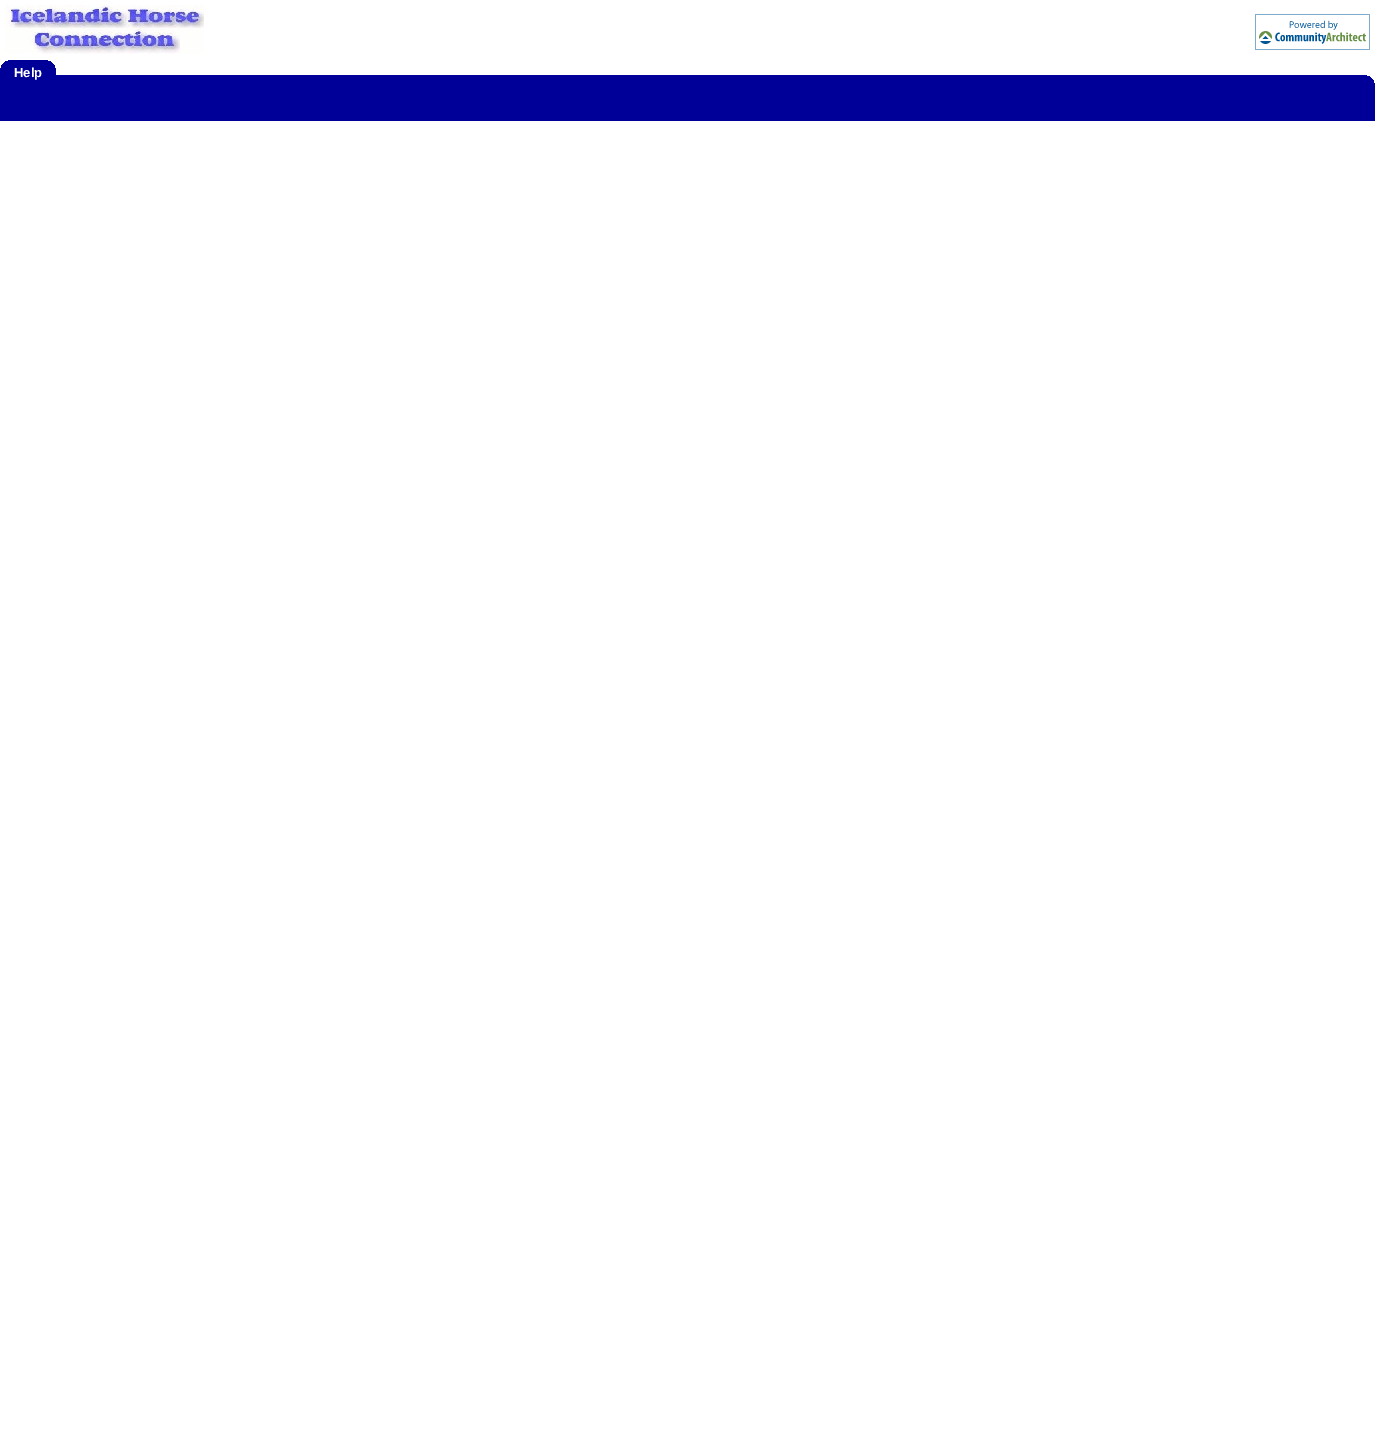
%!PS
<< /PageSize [1375 1446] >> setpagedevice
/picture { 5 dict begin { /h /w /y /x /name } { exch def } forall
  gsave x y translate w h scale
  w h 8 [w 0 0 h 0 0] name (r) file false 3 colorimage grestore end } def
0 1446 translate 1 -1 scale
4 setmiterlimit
1 setgray
0 0 1375 1446 rectfill
(img1.rgb) 5 5 199 49 picture
(img2.rgb) 1255 14 115 36 picture
0 0 0.596 setrgbcolor
0 60 1375 61 rectfill
(img3.rgb) 0 60 8 8 picture
/LiberationSans-Bold [13 0 0 -13 0 0] selectfont
1 setgray
14 77 moveto (Help) show
(img4.rgb) 48 60 8 8 picture
56 60 1319 15 rectfill
(img4.rgb) 1367 75 8 8 picture
showpage
